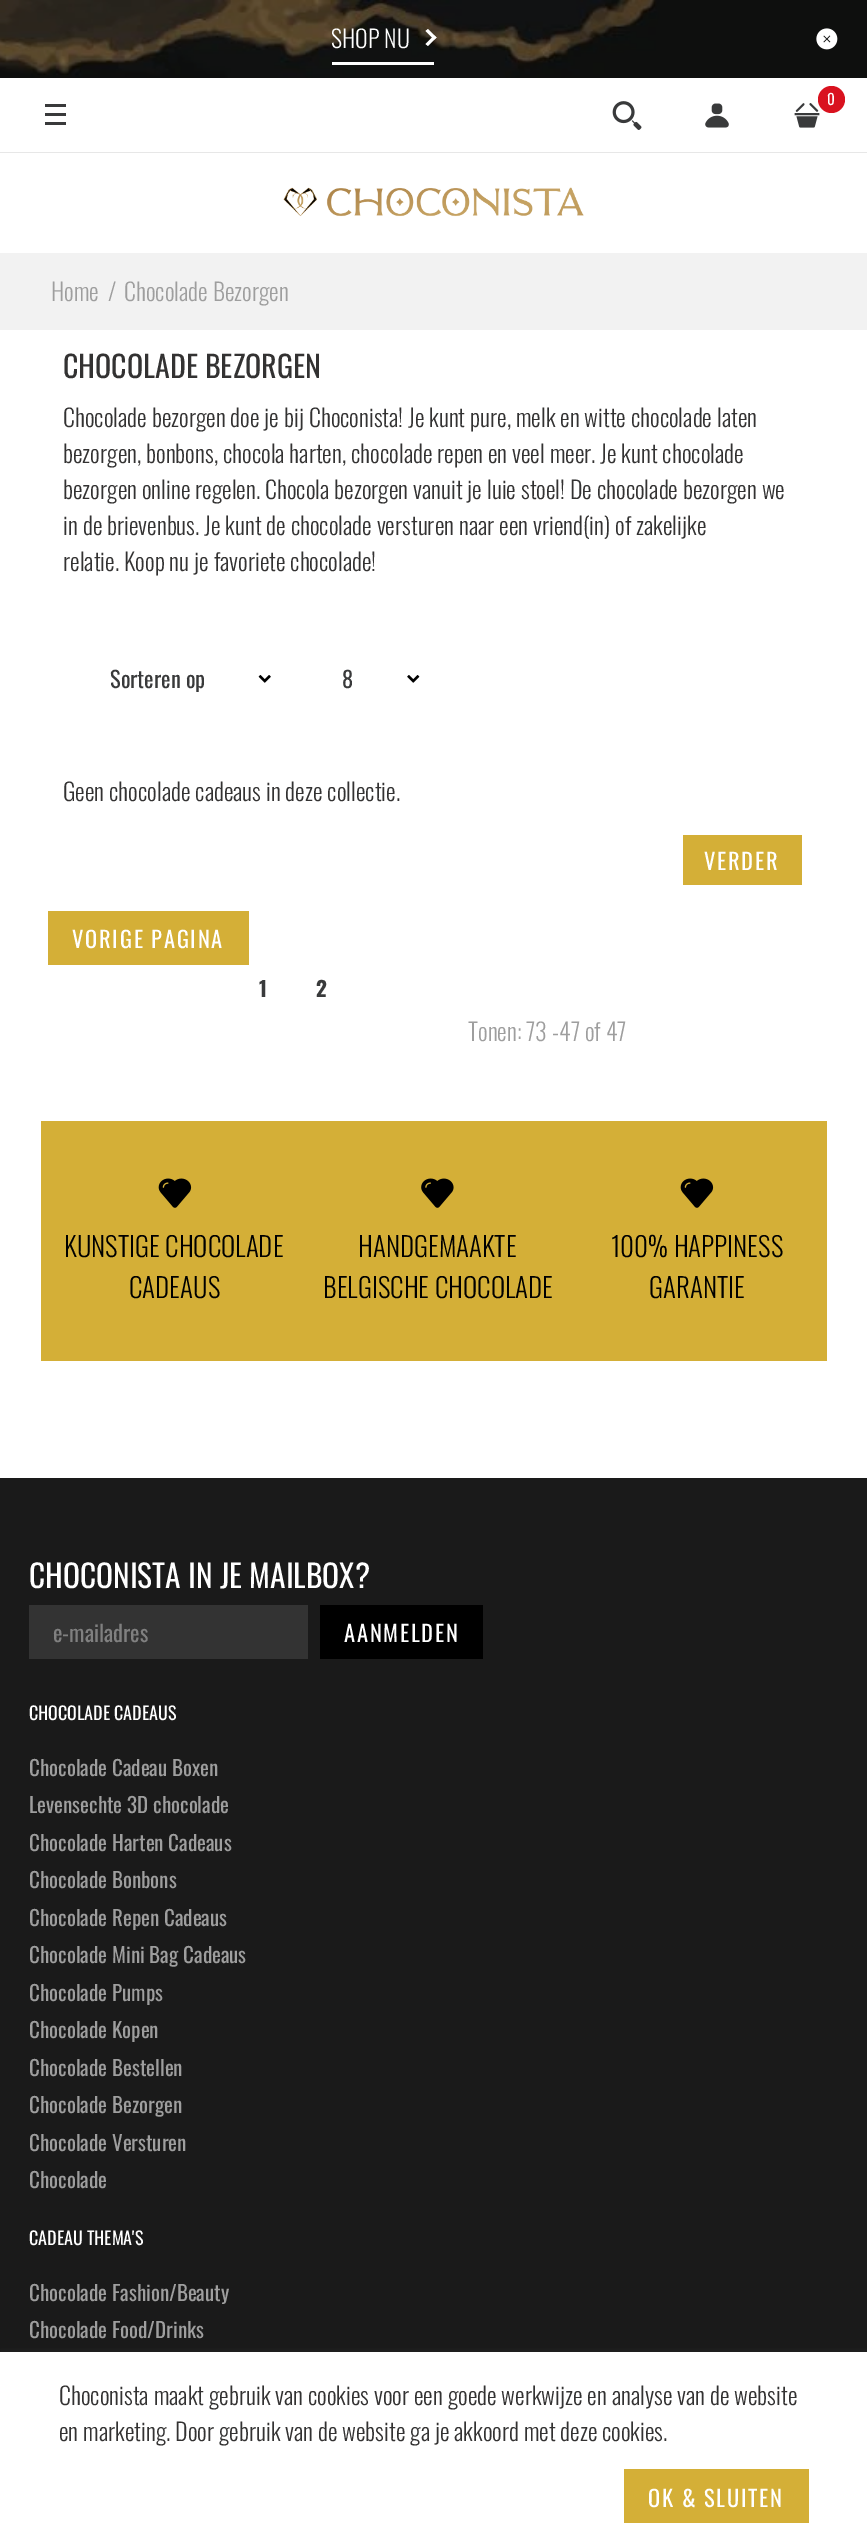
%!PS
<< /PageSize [867 2543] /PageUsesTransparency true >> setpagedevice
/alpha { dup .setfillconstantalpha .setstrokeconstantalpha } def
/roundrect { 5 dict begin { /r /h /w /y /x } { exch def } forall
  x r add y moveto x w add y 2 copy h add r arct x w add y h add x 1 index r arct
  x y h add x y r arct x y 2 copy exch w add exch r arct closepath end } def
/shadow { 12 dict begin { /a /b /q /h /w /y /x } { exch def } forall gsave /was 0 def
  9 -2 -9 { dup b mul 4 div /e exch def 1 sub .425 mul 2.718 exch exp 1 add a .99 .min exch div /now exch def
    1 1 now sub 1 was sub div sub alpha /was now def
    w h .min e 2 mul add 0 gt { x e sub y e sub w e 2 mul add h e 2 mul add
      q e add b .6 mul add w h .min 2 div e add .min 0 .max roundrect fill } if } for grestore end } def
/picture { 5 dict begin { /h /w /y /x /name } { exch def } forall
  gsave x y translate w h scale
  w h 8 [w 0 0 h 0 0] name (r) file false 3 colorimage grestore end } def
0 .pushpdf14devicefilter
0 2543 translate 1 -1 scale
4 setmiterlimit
1 setgray
0 0 867 2543 rectfill
(img1.rgb) 0 0 789 78 picture
332 62 102 3 rectfill
/Oswald-Light [24 0 0 -24 0 0] selectfont
331 48 moveto (SHOP NU) show
newpath 425.5 31 moveto 428 29 lineto 436.5 37.5 lineto 434 39.5 lineto closepath fill
newpath 425.5 44 moveto 434 35.5 lineto 436.5 37.5 lineto 428 46 lineto closepath fill
0.055 0.059 0.055 setrgbcolor
789 0 78 78 rectfill
(img2.rgb) 816 28 22 22 picture
0.906 setgray
0 152 867 1 rectfill
(img3.rgb) 794 103 26 25 picture
0.851 0.071 0.122 setrgbcolor
newpath 831.5 99.5 13.5 0 360 arc closepath fill
/Oswald-Regular [15 0 0 -15 0 0] selectfont
1 setgray
827 105 moveto (0) show
0.224 0.227 0.231 setrgbcolor
45 113 21 3 rectfill
45 104 21 3 rectfill
45 122 21 3 rectfill
(img4.rgb) 612 101 30 29 picture
(img5.rgb) 705 103 24 25 picture
(img6.rgb) 283 187 301 30 picture
0.949 setgray
0 253 867 77 rectfill
/Oswald-Light [24 0 0 -24 0 0] selectfont
0.62 setgray
51 301 moveto (Home) show
108 301 moveto (/) show
124 301 moveto (Chocolade Bezorgen) show
/Oswald-Regular [30 0 0 -30 0 0] selectfont
0.2 0.196 0.196 setrgbcolor
63 378 moveto (CHOCOLADE BEZORGEN) show
/Oswald-Light [24 0 0 -24 0 0] selectfont
63 427 moveto (Chocolade bezorgen doe je bij Choconista! Je kunt pure, melk en witte chocolade laten) show
63 463 moveto (bezorgen, bonbons, chocola harten, chocolade repen en veel meer. Je kunt chocolade) show
63 499 moveto (bezorgen online regelen. Chocola bezorgen vanuit je luie stoel! De chocolade bezorgen we) show
63 535 moveto (in de brievenbus. Je kunt de chocolade versturen naar een vriend\(in\) of zakelijke) show
63 571 moveto (relatie. Koop nu je favoriete chocolade!) show
gsave
110 665 106 27 rectclip
/Oswald-Regular [22.5 0 0 -22.5 0 0] selectfont
0.224 0.227 0.231 setrgbcolor
110 688 moveto (Sorteren op) show
grestore
(img7.rgb) 258 675 13 8 picture
/Oswald-Regular [22.5 0 0 -22.5 0 0] selectfont
0.224 0.227 0.231 setrgbcolor
342 688 moveto (8) show
(img8.rgb) 407 675 13 8 picture
/Oswald-Light [24 0 0 -24 0 0] selectfont
0.2 0.196 0.196 setrgbcolor
63 801 moveto (Geen chocolade cadeaus in deze collectie.) show
0.831 0.686 0.216 setrgbcolor
683 835 119 50 rectfill
/Oswald-Regular [22.5 0 0 -22.5 0 0] selectfont
1 setgray
704 870 moveto 1.75 0 (VERDER) ashow
0.831 0.686 0.216 setrgbcolor
48 911 201 54 rectfill
1 setgray
72 948 moveto 1.75 0 (VORIGE PAGINA) ashow
/Oswald-Bold [21 0 0 -21 0 0] selectfont
0.224 0.227 0.231 setrgbcolor
259 997 moveto (1) show
316 997 moveto (2) show
/Oswald-Light [24 0 0 -24 0 0] selectfont
0.62 setgray
468 1041 moveto (Tonen: 73 -47 of 47) show
0.831 0.686 0.216 setrgbcolor
41 1121 786 240 rectfill
(img9.rgb) 158 1178 34 30 picture
/Oswald-Light [27 0 0 -27 0 0] selectfont
0 setgray
64 1257 moveto (KUNSTIGE CHOCOLADE) show
129 1298 moveto (CADEAUS) show
(img10.rgb) 421 1178 33 30 picture
358 1257 moveto (HANDGEMAAKTE) show
323 1298 moveto (BELGISCHE CHOCOLADE) show
(img9.rgb) 680 1178 34 30 picture
611 1257 moveto (100% HAPPINESS) show
649 1298 moveto (GARANTIE) show
0.102 setgray
0 1478 867 874 rectfill
/Oswald-Regular [31.5 0 0 -31.5 0 0] selectfont
1 setgray
29 1588 moveto (CHOCONISTA IN JE MAILBOX?) show
0.2 setgray
29 1605 279 54 rectfill
/Oswald-Regular [22.5 0 0 -22.5 0 0] selectfont
0.502 setgray
53 1642 moveto (e-mailadres) show
0 setgray
320 1605 163 54 rectfill
1 setgray
344 1642 moveto 1.75 0 (AANMELDEN) ashow
/Oswald-Regular [18 0 0 -18 0 0] selectfont
29 1720 moveto (CHOCOLADE CADEAUS) show
/Oswald-Regular [21 0 0 -21 0 0] selectfont
0.62 setgray
29 1776 moveto (Chocolade Cadeau Boxen) show
29 1813 moveto (Levensechte 3D chocolade) show
29 1851 moveto (Chocolade Harten Cadeaus) show
29 1888 moveto (Chocolade Bonbons) show
29 1926 moveto (Chocolade Repen Cadeaus) show
29 1963 moveto (Chocolade Mini Bag Cadeaus) show
29 2001 moveto (Chocolade Pumps) show
29 2038 moveto (Chocolade Kopen) show
29 2076 moveto (Chocolade Bestellen) show
29 2113 moveto (Chocolade Bezorgen) show
29 2151 moveto (Chocolade Versturen) show
29 2188 moveto (Chocolade) show
/Oswald-Regular [18 0 0 -18 0 0] selectfont
1 setgray
29 2245 moveto (CADEAU THEMA'S) show
/Oswald-Regular [21 0 0 -21 0 0] selectfont
0.62 setgray
29 2301 moveto (Chocolade Fashion/Beauty) show
29 2338 moveto (Chocolade Food/Drinks) show
0.196 setgray
0 2349 867 192 0 1.5 0.2 shadow
1 setgray
0 2352 867 191 rectfill
/Oswald-Light [24 0 0 -24 0 0] selectfont
0.2 0.196 0.196 setrgbcolor
59 2405 moveto (Choconista maakt gebruik van cookies voor een goede werkwijze en analyse van de website) show
59 2441 moveto (en marketing. Door gebruik van de website ga je akkoord met deze cookies.) show
0.831 0.686 0.216 setrgbcolor
624 2469 185 54 rectfill
/Oswald-Regular [22.5 0 0 -22.5 0 0] selectfont
1 setgray
648 2507 moveto 1.75 0 (OK & SLUITEN) ashow
.poppdf14devicefilter showpage
